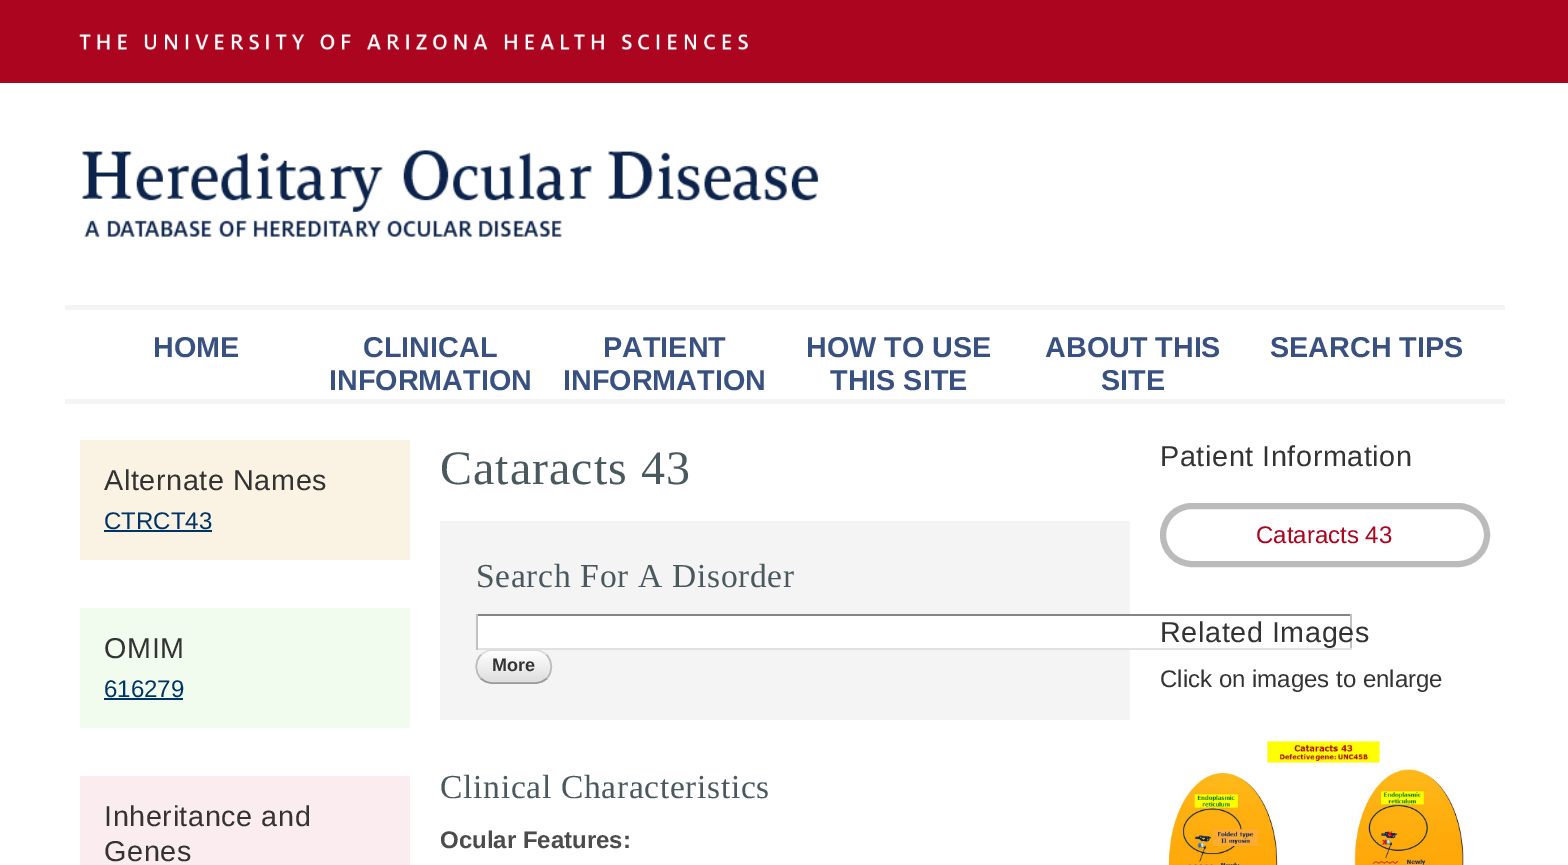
%!PS
<< /PageSize [1568 865] >> setpagedevice
/roundrect { 5 dict begin { /r /h /w /y /x } { exch def } forall
  x r add y moveto x w add y 2 copy h add r arct x w add y h add x 1 index r arct
  x y h add x y r arct x y 2 copy exch w add exch r arct closepath end } def
/picture { 5 dict begin { /h /w /y /x /name } { exch def } forall
  gsave x y translate w h scale
  w h 8 [w 0 0 h 0 0] name (r) file false 3 colorimage grestore end } def
0 865 translate 1 -1 scale
4 setmiterlimit
1 setgray
0 0 1568 865 rectfill
0.671 0.02 0.125 setrgbcolor
0 0 1568 83 rectfill
(img1.rgb) 79 34 669 16 picture
(img2.rgb) 82 150 737 87 picture
0.957 setgray
65 305 1440 5 rectfill
65 399 1440 5 rectfill
/LiberationSans-Bold [28.75 0 0 -28.75 0 0] selectfont
0.224 0.318 0.502 setrgbcolor
153 357 moveto (HOME) show
363 357 moveto (CLINICAL) show
329 390 moveto (INFORMATION) show
603 357 moveto (PATIENT) show
563 390 moveto (INFORMATION) show
806 357 moveto (HOW TO USE) show
830 390 moveto (THIS SITE) show
1045 357 moveto (ABOUT THIS) show
1101 390 moveto (SITE) show
1270 357 moveto (SEARCH TIPS) show
0.98 0.953 0.89 setrgbcolor
80 440 330 120 rectfill
/LiberationSans-Regular [28.75 0 0 -28.75 0 0] selectfont
0.2 setgray
104 490 moveto 0.6 0 (Alternate Names) ashow
/LiberationSans-Regular [24 0 0 -24 0 0] selectfont
0 0.2 0.4 setrgbcolor
104 529 moveto (CTRCT43) show
104 530 108 2 rectfill
0.945 0.988 0.937 setrgbcolor
80 608 330 120 rectfill
/LiberationSans-Regular [28.75 0 0 -28.75 0 0] selectfont
0.2 setgray
104 658 moveto 0.6 0 (OMIM) ashow
/LiberationSans-Regular [24 0 0 -24 0 0] selectfont
0 0.2 0.4 setrgbcolor
104 697 moveto (616279) show
104 698 79 2 rectfill
0.984 0.929 0.937 setrgbcolor
80 776 330 89 rectfill
/LiberationSans-Regular [28.75 0 0 -28.75 0 0] selectfont
0.2 setgray
104 826 moveto 0.6 0 (Inheritance and) ashow
104 861 moveto 0.6 0 (Genes) ashow
/LiberationSerif-Regular [48 0 0 -48 0 0] selectfont
0.286 0.349 0.369 setrgbcolor
440 484 moveto 1 0 (Cataracts 43) ashow
0.957 setgray
440 521 690 199 rectfill
/LiberationSerif-Regular [33.5 0 0 -33.5 0 0] selectfont
0.286 0.349 0.369 setrgbcolor
476 587 moveto 0.7 0 (Search For A Disorder) ashow
1 setgray
478 616 652 32 rectfill
0.518 setgray
476 614 876 2 rectfill
0.757 setgray
1350 614 2 36 rectfill
0.882 setgray
476 648 876 2 rectfill
0.757 setgray
476 614 2 36 rectfill
gsave
476 650 76 34 17 roundrect clip newpath
gsave newpath 476 651 moveto 552 651 lineto 552 683 lineto 476 683 lineto closepath clip newpath
<< /ShadingType 2 /ColorSpace /DeviceRGB /Coords [477 651 477 683] /Extend [true true] /Function << /FunctionType 2 /Domain [0 1] /C0 [1 1 1] /C1 [0.867 0.867 0.867] /N 1 >> >> shfill grestore
gsave newpath 487 683 moveto 541 683 lineto 541 684 lineto 487 684 lineto closepath clip newpath
<< /ShadingType 2 /ColorSpace /DeviceRGB /Coords [477 683 477 714] /Extend [true true] /Function << /FunctionType 2 /Domain [0 1] /C0 [1 1 1] /C1 [0.867 0.867 0.867] /N 1 >> >> shfill grestore
grestore
0.867 setgray
1.5 setlinewidth
newpath 481 655 moveto 484 652 488 650 492 650 curveto 535.5 650 lineto 539.5 650 543.5 652 546.5 655 curveto stroke
0.733 setgray
newpath 546.5 655 moveto 553 661 553 672.5 546.5 678.5 curveto stroke
0.6 setgray
newpath 546.5 678.5 moveto 543.5 681.5 539.5 683 535.5 683 curveto 492 683 lineto 488 683 484 681.5 481 678.5 curveto stroke
0.733 setgray
newpath 481 678.5 moveto 474.5 672.5 474.5 661 481 655 curveto stroke
/LiberationSans-Bold [18 0 0 -18 0 0] selectfont
0.2 setgray
492 671 moveto (More) show
/LiberationSerif-Regular [33.5 0 0 -33.5 0 0] selectfont
0.286 0.349 0.369 setrgbcolor
440 798 moveto 0.7 0 (Clinical Characteristics) ashow
/LiberationSans-Bold [24 0 0 -24 0 0] selectfont
0.298 setgray
440 848 moveto (Ocular Features:) show
/LiberationSans-Regular [28.75 0 0 -28.75 0 0] selectfont
0.2 setgray
1160 466 moveto 0.6 0 (Patient Information) ashow
0.733 setgray
6 setlinewidth
1163 506 324 58 29 roundrect stroke
/LiberationSans-Regular [24 0 0 -24 0 0] selectfont
0.671 0.02 0.125 setrgbcolor
1256 543 moveto (Cataracts 43) show
/LiberationSans-Regular [28.75 0 0 -28.75 0 0] selectfont
0.2 setgray
1160 642 moveto 0.6 0 (Related Images) ashow
/LiberationSans-Regular [24 0 0 -24 0 0] selectfont
1160 687 moveto (Click on images to enlarge) show
(img3.rgb) 1166 738 298 127 picture
showpage
